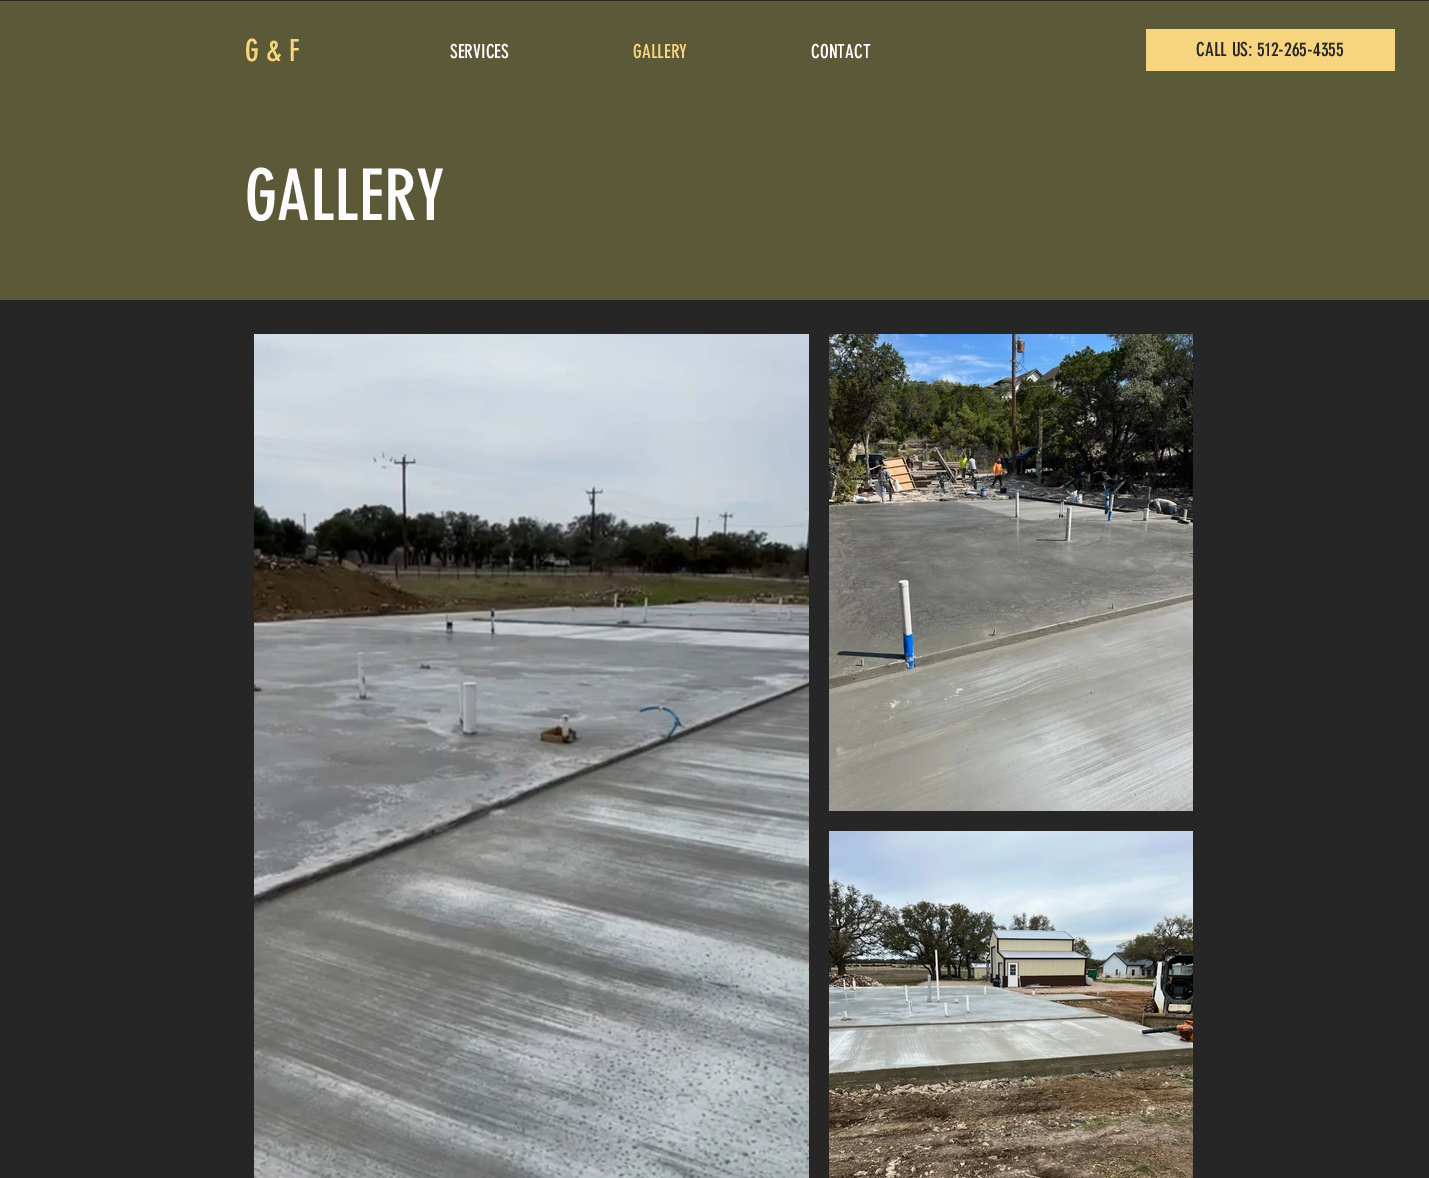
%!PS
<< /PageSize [1429 1178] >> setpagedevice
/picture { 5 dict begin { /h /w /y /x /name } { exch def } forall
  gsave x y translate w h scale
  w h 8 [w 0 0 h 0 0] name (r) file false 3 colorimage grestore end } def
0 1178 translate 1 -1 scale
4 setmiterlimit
0.149 setgray
0 0 1429 1178 rectfill
0.361 0.349 0.224 setrgbcolor
0 1 1429 299 rectfill
/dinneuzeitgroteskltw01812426-Regular [30 0 0 -30 0 0] selectfont
0.969 0.835 0.498 setrgbcolor
245 61 moveto (G & F) show
/dinneuzeitgroteskltw01812426-Regular [19 0 0 -19 0 0] selectfont
0.988 setgray
450 58 moveto (SERVICES) show
0.969 0.835 0.498 setrgbcolor
633 58 moveto (GALLERY) show
0.988 setgray
811 58 moveto (CONTACT) show
0.969 0.835 0.498 setrgbcolor
1146 29 249 42 rectfill
0.149 setgray
1196 56 moveto (CALL US: 512-265-4355) show
/dinneuzeitgroteskltw01812426-Regular [70 0 0 -70 0 0] selectfont
0.988 setgray
245 220 moveto (GALLERY) show
(img1.rgb) 254 334 555 844 picture
(img2.rgb) 829 334 364 477 picture
(img3.rgb) 829 831 364 347 picture
showpage
